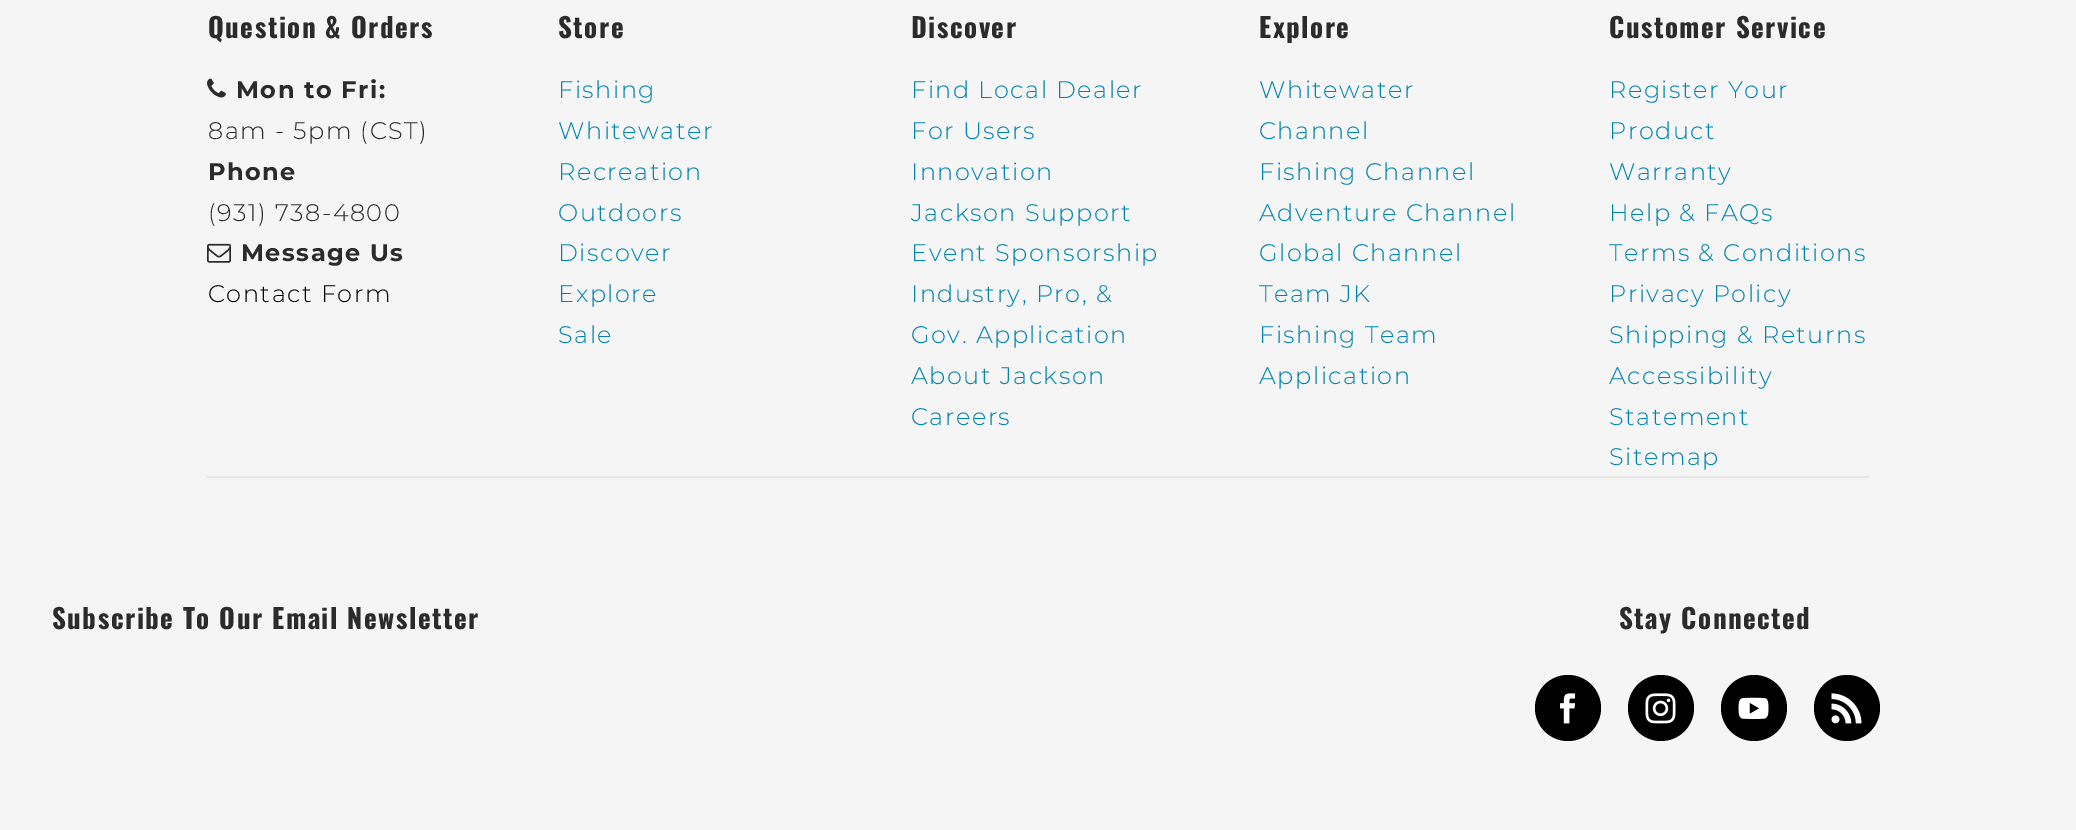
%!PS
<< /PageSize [2076 830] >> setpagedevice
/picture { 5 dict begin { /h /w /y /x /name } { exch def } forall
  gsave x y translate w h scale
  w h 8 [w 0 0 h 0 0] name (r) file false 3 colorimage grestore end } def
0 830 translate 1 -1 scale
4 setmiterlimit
0.961 setgray
0 0 2076 830 rectfill
0.906 setgray
207 476 1662 2 rectfill
/Oswald-Bold [27 0 0 -27 0 0] selectfont
0.169 setgray
208 38 moveto 1.5 0 (Question & Orders) ashow
(img1.rgb) 207 78 19 20 picture
/Montserrat-Thin [24 0 0 -24 0 0] selectfont
236 98 moveto 1.5 0 (Mon to Fri:) ashow
/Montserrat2-Thin [24 0 0 -24 0 0] selectfont
208 139 moveto 1.5 0 (8am - 5pm \(CST\)) ashow
/Montserrat-Thin [24 0 0 -24 0 0] selectfont
208 180 moveto 1.5 0 (Phone) ashow
/Montserrat2-Thin [24 0 0 -24 0 0] selectfont
208 221 moveto 1.5 0 (\(931\) 738-4800) ashow
(img2.rgb) 207 243 24 20 picture
/Montserrat-Thin [24 0 0 -24 0 0] selectfont
241 261 moveto 1.5 0 (Message Us) ashow
/Montserrat2-Thin [24 0 0 -24 0 0] selectfont
0 setgray
208 302 moveto 1.5 0 (Contact Form) ashow
/Oswald-Bold [27 0 0 -27 0 0] selectfont
0.169 setgray
558 38 moveto 1.5 0 (Store) ashow
/Montserrat2-Thin [24 0 0 -24 0 0] selectfont
0 0.518 0.678 setrgbcolor
558 98 moveto 1.5 0 (Fishing) ashow
558 139 moveto 1.5 0 (Whitewater) ashow
558 180 moveto 1.5 0 (Recreation) ashow
558 221 moveto 1.5 0 (Outdoors) ashow
558 261 moveto 1.5 0 (Discover) ashow
558 302 moveto 1.5 0 (Explore) ashow
558 343 moveto 1.5 0 (Sale) ashow
/Oswald-Bold [27 0 0 -27 0 0] selectfont
0.169 setgray
911 38 moveto 1.5 0 (Discover) ashow
/Montserrat2-Thin [24 0 0 -24 0 0] selectfont
0 0.518 0.678 setrgbcolor
911 98 moveto 1.5 0 (Find Local Dealer) ashow
911 139 moveto 1.5 0 (For Users) ashow
911 180 moveto 1.5 0 (Innovation) ashow
911 221 moveto 1.5 0 (Jackson Support) ashow
911 261 moveto 1.5 0 (Event Sponsorship) ashow
911 302 moveto 1.5 0 (Industry, Pro, &) ashow
911 343 moveto 1.5 0 (Gov. Application) ashow
911 384 moveto 1.5 0 (About Jackson) ashow
911 425 moveto 1.5 0 (Careers) ashow
/Oswald-Bold [27 0 0 -27 0 0] selectfont
0.169 setgray
1259 38 moveto 1.5 0 (Explore) ashow
/Montserrat2-Thin [24 0 0 -24 0 0] selectfont
0 0.518 0.678 setrgbcolor
1259 98 moveto 1.5 0 (Whitewater) ashow
1259 139 moveto 1.5 0 (Channel) ashow
1259 180 moveto 1.5 0 (Fishing Channel) ashow
1259 221 moveto 1.5 0 (Adventure Channel) ashow
1259 261 moveto 1.5 0 (Global Channel) ashow
1259 302 moveto 1.5 0 (Team JK) ashow
1259 343 moveto 1.5 0 (Fishing Team) ashow
1259 384 moveto 1.5 0 (Application) ashow
/Oswald-Bold [27 0 0 -27 0 0] selectfont
0.169 setgray
1609 38 moveto 1.5 0 (Customer Service) ashow
/Montserrat2-Thin [24 0 0 -24 0 0] selectfont
0 0.518 0.678 setrgbcolor
1609 98 moveto 1.5 0 (Register Your) ashow
1609 139 moveto 1.5 0 (Product) ashow
1609 180 moveto 1.5 0 (Warranty) ashow
1609 221 moveto 1.5 0 (Help & FAQs) ashow
1609 261 moveto 1.5 0 (Terms & Conditions) ashow
1609 302 moveto 1.5 0 (Privacy Policy) ashow
1609 343 moveto 1.5 0 (Shipping & Returns) ashow
1609 384 moveto 1.5 0 (Accessibility) ashow
1609 425 moveto 1.5 0 (Statement) ashow
1609 465 moveto 1.5 0 (Sitemap) ashow
/Oswald-Bold [27 0 0 -27 0 0] selectfont
0.169 setgray
52 629 moveto 1.5 0 (Subscribe To Our Email Newsletter) ashow
1619 629 moveto 1.5 0 (Stay Connected) ashow
0 setgray
newpath 1568 708 33 0 360 arc closepath fill
(img3.rgb) 1560 693 16 31 picture
newpath 1661 708 33 0 360 arc closepath fill
(img4.rgb) 1645 693 31 31 picture
newpath 1754 708 33 0 360 arc closepath fill
(img5.rgb) 1738 697 31 23 picture
newpath 1847 708 33 0 360 arc closepath fill
(img6.rgb) 1831 693 31 31 picture
showpage
